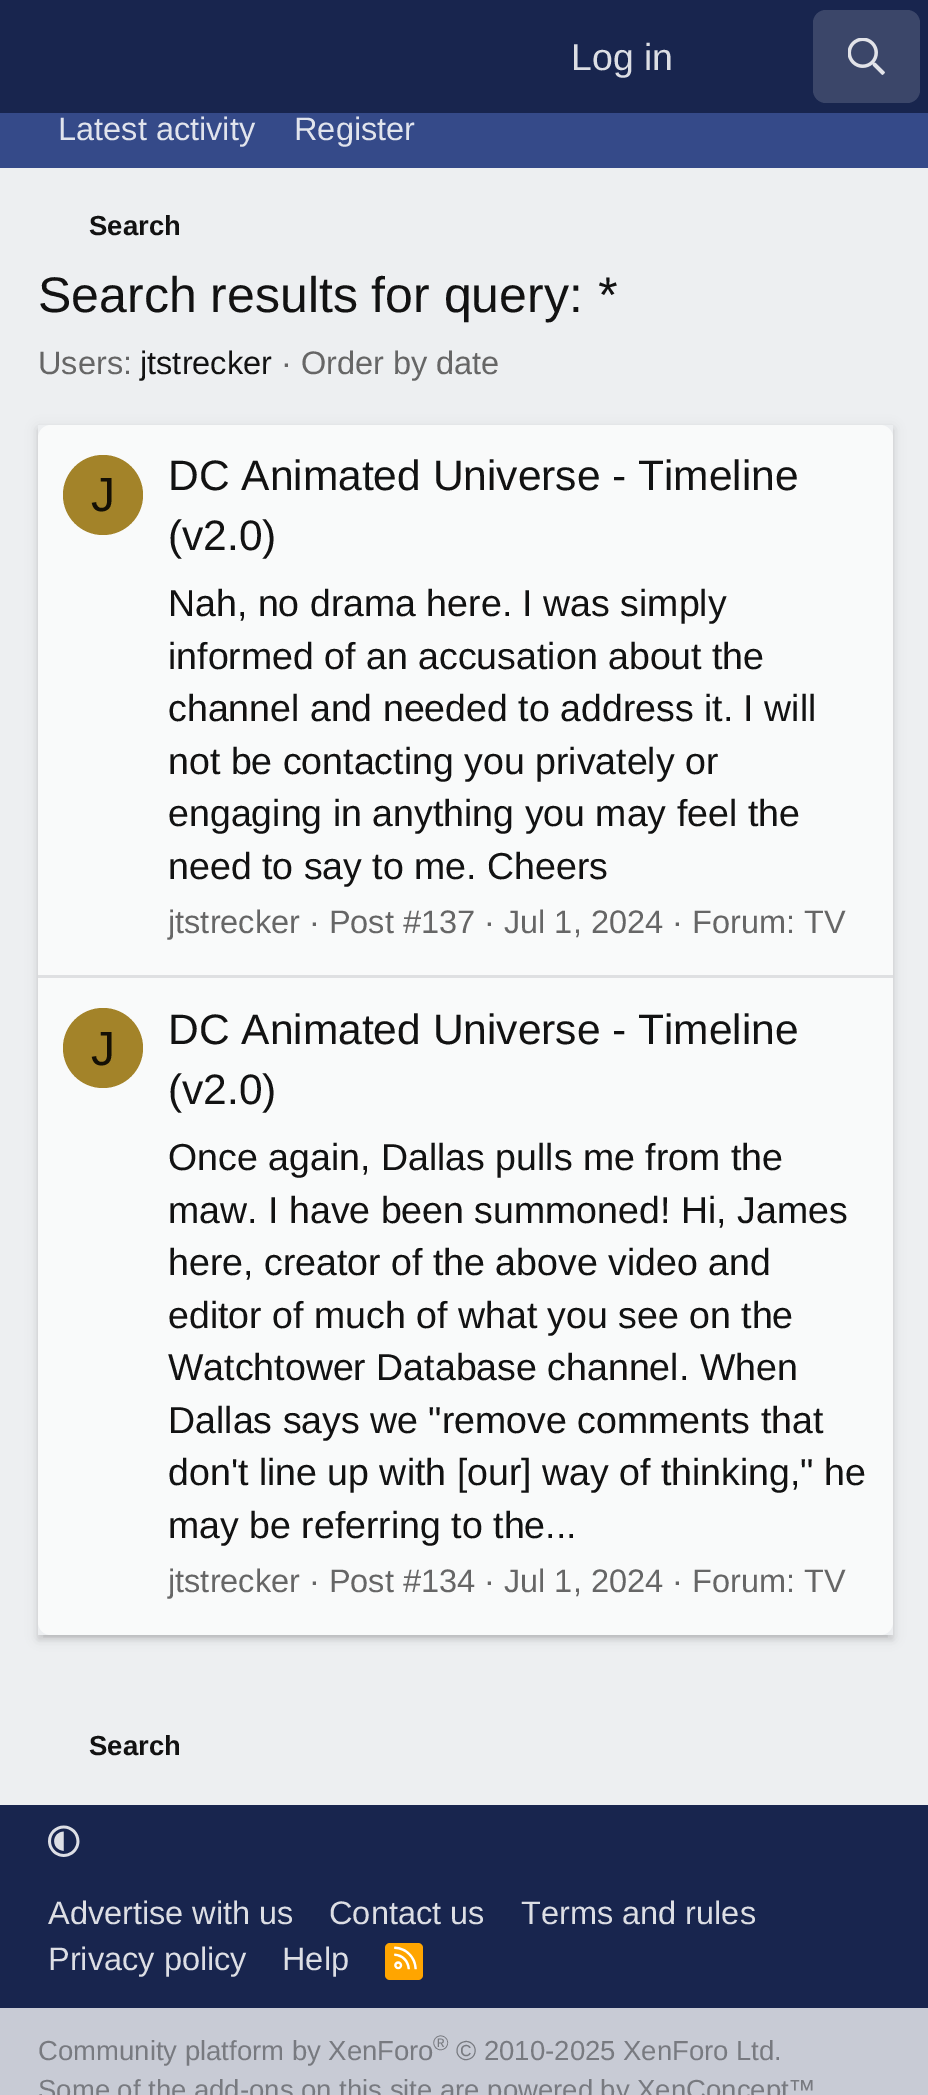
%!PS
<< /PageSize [928 2095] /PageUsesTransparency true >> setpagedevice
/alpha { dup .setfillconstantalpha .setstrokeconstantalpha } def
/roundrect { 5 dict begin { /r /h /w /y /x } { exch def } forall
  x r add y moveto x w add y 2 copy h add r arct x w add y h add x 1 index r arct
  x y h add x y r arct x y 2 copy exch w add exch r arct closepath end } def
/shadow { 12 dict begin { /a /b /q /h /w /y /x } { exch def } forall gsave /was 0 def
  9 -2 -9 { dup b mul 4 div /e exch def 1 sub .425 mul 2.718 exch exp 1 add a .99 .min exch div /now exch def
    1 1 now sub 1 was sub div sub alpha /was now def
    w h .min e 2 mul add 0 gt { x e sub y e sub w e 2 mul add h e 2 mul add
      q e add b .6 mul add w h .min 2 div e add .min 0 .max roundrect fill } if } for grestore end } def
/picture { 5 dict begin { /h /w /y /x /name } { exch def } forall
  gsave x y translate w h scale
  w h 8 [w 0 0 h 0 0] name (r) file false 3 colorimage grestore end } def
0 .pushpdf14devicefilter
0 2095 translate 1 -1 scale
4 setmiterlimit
0.784 0.796 0.835 setrgbcolor
0 0 928 2095 rectfill
0.094 0.145 0.306 setrgbcolor
0 0 928 113 rectfill
/LiberationSans-Regular [37.5 0 0 -37.5 0 0] selectfont
0.863 0.871 0.894 setrgbcolor
571 70 moveto (Log in) show
0.231 0.275 0.412 setrgbcolor
813 10 107 93 13 roundrect fill
(img1.rgb) 848 38 37 37 picture
0.208 0.29 0.537 setrgbcolor
0 113 928 55 rectfill
/LiberationSans-Regular [32.5 0 0 -32.5 0 0] selectfont
0.882 0.894 0.929 setrgbcolor
58 140 moveto (Latest activity) show
294 140 moveto (Register) show
0.929 0.937 0.945 setrgbcolor
0 168 928 1637 rectfill
/LiberationSans-Bold [27.5 0 0 -27.5 0 0] selectfont
0.071 setgray
89 235 moveto (Search) show
/LiberationSans-Regular [50 0 0 -50 0 0] selectfont
38 312 moveto (Search results for query:) show
/LiberationSans-Italic [50 0 0 -50 0 0] selectfont
596 312 moveto (*) show
/LiberationSans-Regular [32.5 0 0 -32.5 0 0] selectfont
0.4 setgray
38 374 moveto (Users:) show
0.071 setgray
140 374 moveto (jtstrecker) show
0.4 setgray
281 374 moveto (· Order by date) show
gsave
newpath 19 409 moveto 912 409 lineto 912 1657 lineto 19 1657 lineto closepath 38 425 moveto 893 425 lineto 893 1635 lineto 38 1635 lineto closepath eoclip newpath
0 setgray
38 428 855 1210 0 6 0.1 shadow
grestore
gsave
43 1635 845 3 rectclip
0 setgray
43 438 845 1200 0 1 0.06 shadow
grestore
gsave
newpath 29 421 moveto 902 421 lineto 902 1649 lineto 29 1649 lineto closepath 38 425 moveto 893 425 lineto 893 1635 lineto 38 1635 lineto closepath eoclip newpath
0 setgray
38 430 855 1210 0 2.5 0.07 shadow
grestore
0.976 0.98 0.98 setrgbcolor
38 425 855 1210 13 roundrect fill
0.639 0.514 0.161 setrgbcolor
newpath 103 495 40 0 360 arc closepath fill
/LiberationSans-Regular [48 0 0 -48 0 0] selectfont
0.078 0.063 0.02 setrgbcolor
91 511 moveto (J) show
/LiberationSans-Regular [42.5 0 0 -42.5 0 0] selectfont
0.071 setgray
168 490 moveto (DC Animated Universe - Timeline) show
168 550 moveto (\(v2.0\)) show
/LiberationSans-Regular [37.5 0 0 -37.5 0 0] selectfont
168 616 moveto (Nah, no drama here. I was simply) show
168 669 moveto (informed of an accusation about the) show
168 721 moveto (channel and needed to address it. I will) show
168 774 moveto (not be contacting you privately or) show
168 826 moveto (engaging in anything you may feel the) show
168 879 moveto (need to say to me. Cheers) show
/LiberationSans-Regular [32.5 0 0 -32.5 0 0] selectfont
0.4 setgray
168 933 moveto (jtstrecker · Post #137 · Jul 1, 2024 · Forum: TV) show
0.875 0.878 0.886 setrgbcolor
38 975 855 3 rectfill
0.639 0.514 0.161 setrgbcolor
newpath 103 1048 40 0 360 arc closepath fill
/LiberationSans-Regular [48 0 0 -48 0 0] selectfont
0.078 0.063 0.02 setrgbcolor
91 1065 moveto (J) show
/LiberationSans-Regular [42.5 0 0 -42.5 0 0] selectfont
0.071 setgray
168 1044 moveto (DC Animated Universe - Timeline) show
168 1104 moveto (\(v2.0\)) show
/LiberationSans-Regular [37.5 0 0 -37.5 0 0] selectfont
168 1170 moveto (Once again, Dallas pulls me from the) show
168 1223 moveto (maw. I have been summoned! Hi, James) show
168 1275 moveto (here, creator of the above video and) show
168 1328 moveto (editor of much of what you see on the) show
168 1380 moveto (Watchtower Database channel. When) show
168 1433 moveto (Dallas says we "remove comments that) show
168 1485 moveto (don't line up with [our] way of thinking," he) show
168 1538 moveto (may be referring to the...) show
/LiberationSans-Regular [32.5 0 0 -32.5 0 0] selectfont
0.4 setgray
168 1592 moveto (jtstrecker · Post #134 · Jul 1, 2024 · Forum: TV) show
/LiberationSans-Bold [27.5 0 0 -27.5 0 0] selectfont
0.071 setgray
89 1755 moveto (Search) show
0.094 0.145 0.306 setrgbcolor
0 1805 928 203 rectfill
(img2.rgb) 48 1825 32 32 picture
/LiberationSans-Regular [32.5 0 0 -32.5 0 0] selectfont
0.863 0.871 0.894 setrgbcolor
48 1924 moveto (Advertise with us) show
329 1924 moveto (Contact us) show
521 1924 moveto (Terms and rules) show
48 1970 moveto (Privacy policy) show
282 1970 moveto (Help) show
1 0.647 0 setrgbcolor
385 1943 38 37 5 roundrect fill
(img3.rgb) 394 1946 23 24 picture
/LiberationSans-Regular [27.5 0 0 -27.5 0 0] selectfont
0.471 0.478 0.502 setrgbcolor
38 2060 moveto (Community platform by XenForo) show
/LiberationSans-Regular [21 0 0 -21 0 0] selectfont
433 2050 moveto (®) show
/LiberationSans-Regular [27.5 0 0 -27.5 0 0] selectfont
456 2060 moveto (© 2010-2025 XenForo Ltd.) show
38 2099 moveto (Some of the add-ons on this site are powered by XenConcept™) show
.poppdf14devicefilter showpage
